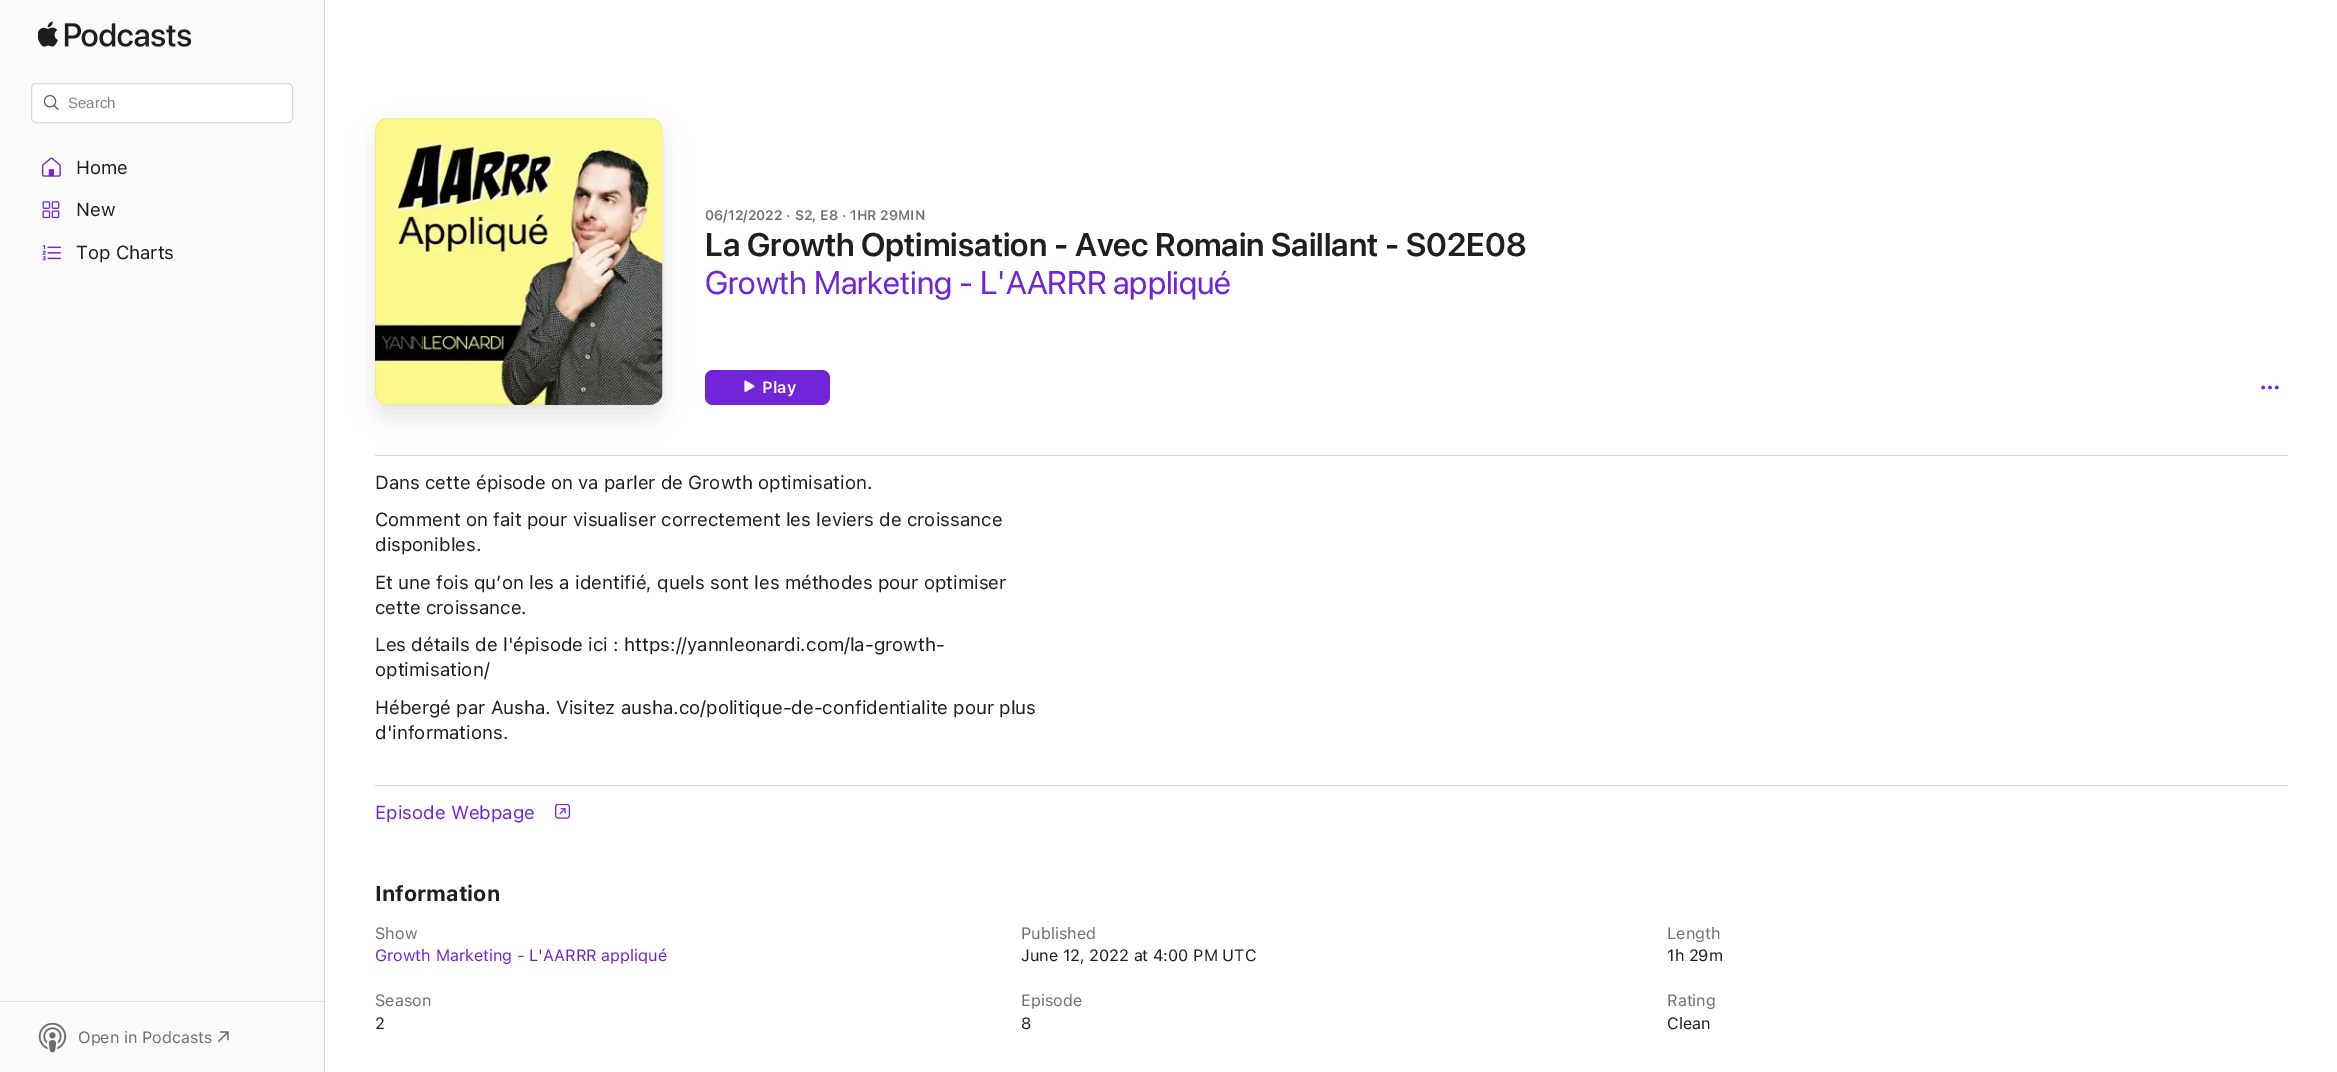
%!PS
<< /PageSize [2337 1072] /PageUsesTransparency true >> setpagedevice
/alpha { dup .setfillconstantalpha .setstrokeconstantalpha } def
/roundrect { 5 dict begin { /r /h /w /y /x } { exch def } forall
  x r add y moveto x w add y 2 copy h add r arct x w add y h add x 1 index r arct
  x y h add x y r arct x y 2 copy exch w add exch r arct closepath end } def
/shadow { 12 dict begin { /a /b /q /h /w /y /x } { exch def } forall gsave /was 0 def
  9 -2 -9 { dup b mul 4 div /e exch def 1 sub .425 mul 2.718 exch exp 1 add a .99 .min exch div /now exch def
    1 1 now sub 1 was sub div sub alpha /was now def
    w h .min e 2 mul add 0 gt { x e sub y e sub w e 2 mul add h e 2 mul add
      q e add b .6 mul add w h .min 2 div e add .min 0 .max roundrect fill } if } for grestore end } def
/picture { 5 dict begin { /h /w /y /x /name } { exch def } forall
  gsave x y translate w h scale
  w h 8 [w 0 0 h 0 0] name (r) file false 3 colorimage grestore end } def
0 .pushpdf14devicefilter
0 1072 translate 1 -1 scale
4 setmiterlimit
1 setgray
0 0 2337 1072 rectfill
0.98 setgray
0 0 324 1072 rectfill
0.882 setgray
0 1001 325 1 rectfill
0.835 setgray
324 0 1 1072 rectfill
0.753 setgray
324 1001 1 1 rectfill
(img1.rgb) 38 21 153 26 picture
1 setgray
31.5 83.5 261 39 4.5 roundrect gsave fill grestore
0.851 setgray
stroke
(img2.rgb) 44 95 15 15 picture
/LiberationSans-Regular [15 0 0 -15 0 0] selectfont
0.522 setgray
68 108 moveto (Search) show
(img3.rgb) 41 157 20 20 picture
/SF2-Regular [18.75 0 0 -18.75 0 0] selectfont
0.122 setgray
76 174 moveto (Home) show
(img4.rgb) 42 201 18 18 picture
76 216 moveto (New) show
(img5.rgb) 42 245 19 16 picture
76 259 moveto (Top Charts) show
(img6.rgb) 38 1023 29 30 picture
/SF2-Regular [16.25 0 0 -16.25 0 0] selectfont
0.439 setgray
78 1043 moveto (Open in Podcasts) show
(img7.rgb) 218 1031 11 12 picture
0.851 setgray
375 455 1913 1 rectfill
0 setgray
375 130 288 288 13 12.5 0.1 shadow
(img8.rgb) 375 117 288 288 picture
0.1 alpha
0.502 setgray
375.5 118.5 287 286 12.5 roundrect stroke
/SF-SemiBold [13.75 0 0 -13.75 0 0] selectfont
1 alpha
0.439 setgray
705 220 moveto (06/12/2022 · S2, E8 · 1HR 29MIN) show
/SF2-SemiBold [32.5 0 0 -32.5 0 0] selectfont
0.122 setgray
705 256 moveto (La Growth Optimisation - Avec Romain Saillant - S02E08) show
/SF-Regular [32.5 0 0 -32.5 0 0] selectfont
0.447 0.141 0.847 setrgbcolor
705 294 moveto (Growth Marketing - L'AARRR appliqué) show
705 370 125 35 8 roundrect fill
(img9.rgb) 744 380 11 12 picture
/SF-SemiBold [16.25 0 0 -16.25 0 0] selectfont
1 setgray
762 393 moveto (Play) show
(img10.rgb) 2261 385 18 5 picture
/SF2-Regular [18.75 0 0 -18.75 0 0] selectfont
0.122 setgray
375 489 moveto (Dans cette épisode on va parler de Growth optimisation.) show
375 526 moveto (Comment on fait pour visualiser correctement les leviers de croissance) show
375 551 moveto (disponibles.) show
375 589 moveto (Et une fois qu’on les a identifié, quels sont les méthodes pour optimiser) show
375 614 moveto (cette croissance.) show
375 651 moveto (Les détails de l'épisode ici : https://yannleonardi.com/la-growth-) show
375 676 moveto (optimisation/) show
375 714 moveto (Hébergé par Ausha. Visitez ausha.co/politique-de-confidentialite pour plus) show
375 739 moveto (d'informations.) show
0.851 setgray
375 785 1913 1 rectfill
0.447 0.141 0.847 setrgbcolor
375 819 moveto (Episode Webpage) show
(img11.rgb) 555 804 16 15 picture
/SF-Bold [21.25 0 0 -21.25 0 0] selectfont
0.122 setgray
375 901 moveto (Information) show
/SF2-Regular [16.25 0 0 -16.25 0 0] selectfont
0.439 setgray
375 939 moveto (Show) show
0.447 0.141 0.847 setrgbcolor
375 961 moveto (Growth Marketing - L'AARRR appliqué) show
0.439 setgray
1021 939 moveto (Published) show
0.122 setgray
1021 961 moveto (June 12, 2022 at 4:00 PM UTC) show
0.439 setgray
1667 939 moveto (Length) show
0.122 setgray
1667 961 moveto (1h 29m) show
0.439 setgray
375 1006 moveto (Season) show
0.122 setgray
375 1029 moveto (2) show
0.439 setgray
1021 1006 moveto (Episode) show
0.122 setgray
1021 1029 moveto (8) show
0.439 setgray
1667 1006 moveto (Rating) show
0.122 setgray
1667 1029 moveto (Clean) show
.poppdf14devicefilter showpage
